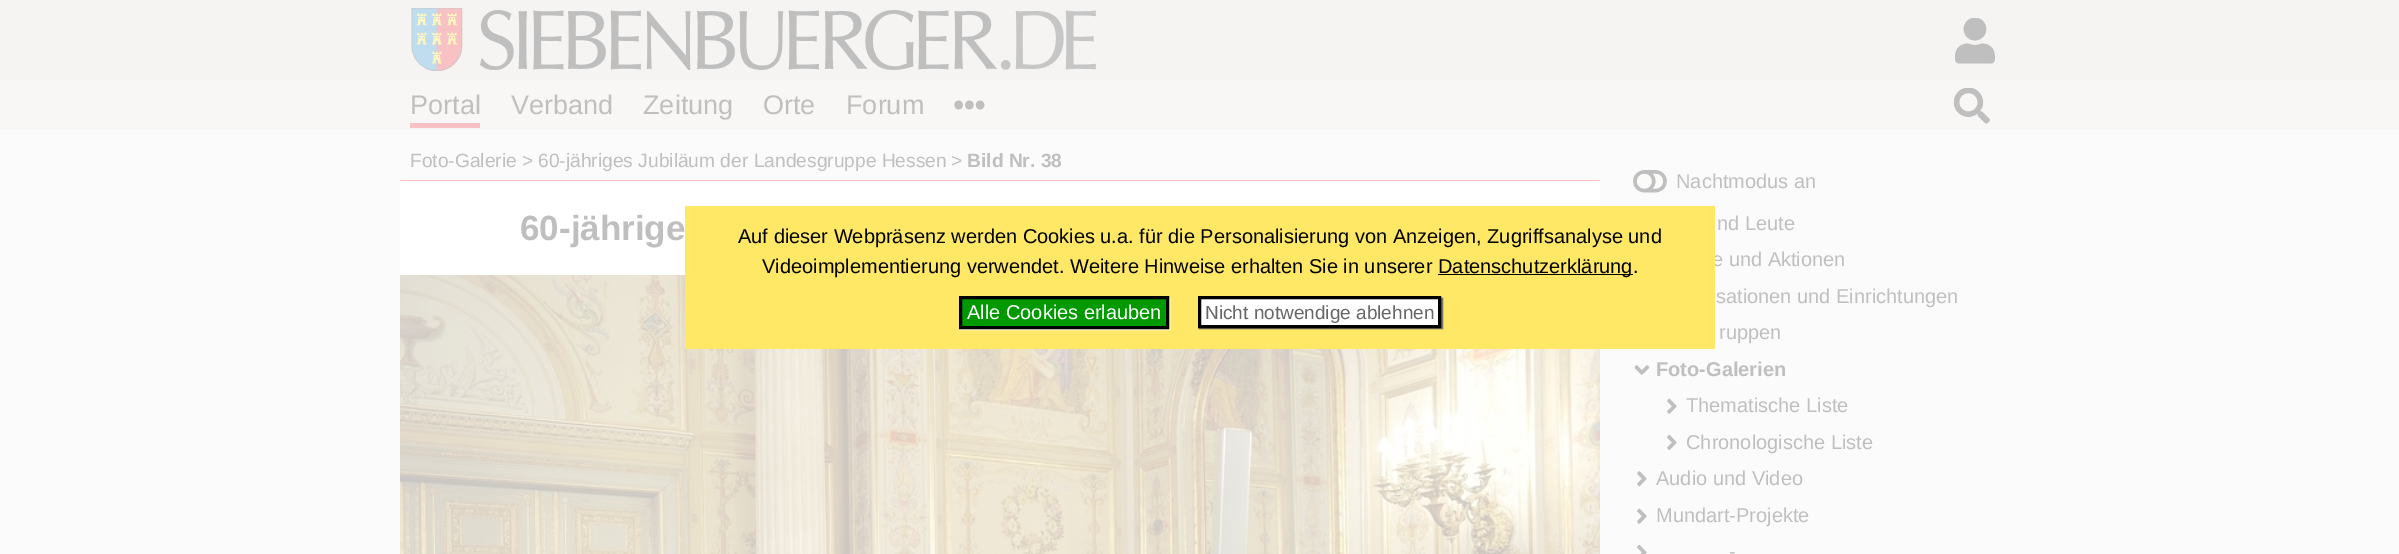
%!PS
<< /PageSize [2399 554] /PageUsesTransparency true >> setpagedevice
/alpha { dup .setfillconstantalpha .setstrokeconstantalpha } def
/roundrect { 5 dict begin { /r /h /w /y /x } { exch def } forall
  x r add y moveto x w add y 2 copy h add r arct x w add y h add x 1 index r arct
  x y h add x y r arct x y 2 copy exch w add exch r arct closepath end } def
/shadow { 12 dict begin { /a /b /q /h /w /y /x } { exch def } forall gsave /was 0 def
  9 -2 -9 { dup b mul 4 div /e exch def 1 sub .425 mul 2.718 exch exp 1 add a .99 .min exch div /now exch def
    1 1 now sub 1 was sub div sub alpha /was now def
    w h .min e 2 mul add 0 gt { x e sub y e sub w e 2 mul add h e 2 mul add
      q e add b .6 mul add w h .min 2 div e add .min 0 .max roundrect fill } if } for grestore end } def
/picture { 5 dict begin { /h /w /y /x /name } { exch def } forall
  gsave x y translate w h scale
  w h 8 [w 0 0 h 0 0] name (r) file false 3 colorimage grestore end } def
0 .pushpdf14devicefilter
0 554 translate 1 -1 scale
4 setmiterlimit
0.984 setgray
0 0 2399 554 rectfill
(img1.rgb) 0 0 2399 130 picture
(img2.rgb) 411 8 52 63 picture
(img3.rgb) 480 10 616 60 picture
(img4.rgb) 1955 18 40 46 picture
0.973 0.757 0.769 setrgbcolor
410 123 70 5 rectfill
/LiberationSans-Regular [27 0 0 -27 0 0] selectfont
0.749 setgray
410 114 moveto (Portal) show
511 114 moveto (Verband) show
643 114 moveto (Zeitung) show
763 114 moveto (Orte) show
846 114 moveto (Forum) show
(img5.rgb) 954 100 31 10 picture
(img6.rgb) 1954 88 36 36 picture
1 setgray
400 181 1200 94 rectfill
0.973 0.757 0.769 setrgbcolor
400 180 1200 1 rectfill
/LiberationSans-Regular [19.2 0 0 -19.2 0 0] selectfont
0.749 setgray
410 167 moveto (Foto-Galerie) show
522 167 moveto (>) show
538 167 moveto (60-jähriges Jubiläum der Landesgruppe Hessen) show
951 167 moveto (>) show
/LiberationSans-Bold [19.2 0 0 -19.2 0 0] selectfont
967 167 moveto (Bild Nr. 38) show
/LiberationSans-Bold [35 0 0 -35 0 0] selectfont
520 240 moveto (60-jährige) show
(img7.rgb) 400 275 1200 279 picture
/LiberationSans-Regular [20 0 0 -20 0 0] selectfont
1712 266 moveto (e und Aktionen) show
1 0.91 0.4 setrgbcolor
685 206 1030 143 rectfill
0 setgray
738 243 moveto (Auf dieser Webpräsenz werden Cookies u.a. für die Personalisierung von Anzeigen, Zugriffsanalyse und) show
762 273 moveto (Videoimplementierung verwendet. Weitere Hinweise erhalten Sie in unserer) show
1438 274 195 1 rectfill
1438 273 moveto (Datenschutzerklärung.) show
1 setgray
960 298 210 32 0 0.5 1 shadow
0 0.6 0 setrgbcolor
newpath 960.5 297.5 moveto 1167.5 297.5 lineto 1167.5 327.5 lineto 960.5 327.5 lineto closepath gsave fill grestore
0 setgray
3 setlinewidth
stroke
1 setgray
967 319 moveto (Alle Cookies erlauben) show
0.4 setgray
1199 298 244 31 0 0.5 1 shadow
1 setgray
newpath 1199.5 297.5 moveto 1439.5 297.5 lineto 1439.5 326.5 lineto 1199.5 326.5 lineto closepath gsave fill grestore
0 setgray
stroke
/LiberationSans-Regular [19 0 0 -19 0 0] selectfont
0.4 setgray
1205 319 moveto (Nicht notwendige ablehnen) show
(img8.rgb) 1633 170 34 23 picture
/LiberationSans-Regular [20 0 0 -20 0 0] selectfont
0.749 setgray
1676 188 moveto (Nachtmodus an) show
1717 230 moveto (nd Leute) show
1716 303 moveto (sationen und Einrichtungen) show
1719 339 moveto (ruppen) show
(img9.rgb) 1634 365 16 10 picture
/LiberationSans-Bold [20 0 0 -20 0 0] selectfont
1656 376 moveto (Foto-Galerien) show
(img10.rgb) 1667 398 10 16 picture
/LiberationSans-Regular [20 0 0 -20 0 0] selectfont
1686 412 moveto (Thematische Liste) show
(img11.rgb) 1667 435 10 15 picture
1686 449 moveto (Chronologische Liste) show
(img12.rgb) 1637 471 10 16 picture
1656 485 moveto (Audio und Video) show
(img10.rgb) 1637 508 10 16 picture
1656 522 moveto (Mundart-Projekte) show
(img13.rgb) 1637 545 10 9 picture
1729 558 moveto (-) show
.poppdf14devicefilter showpage
